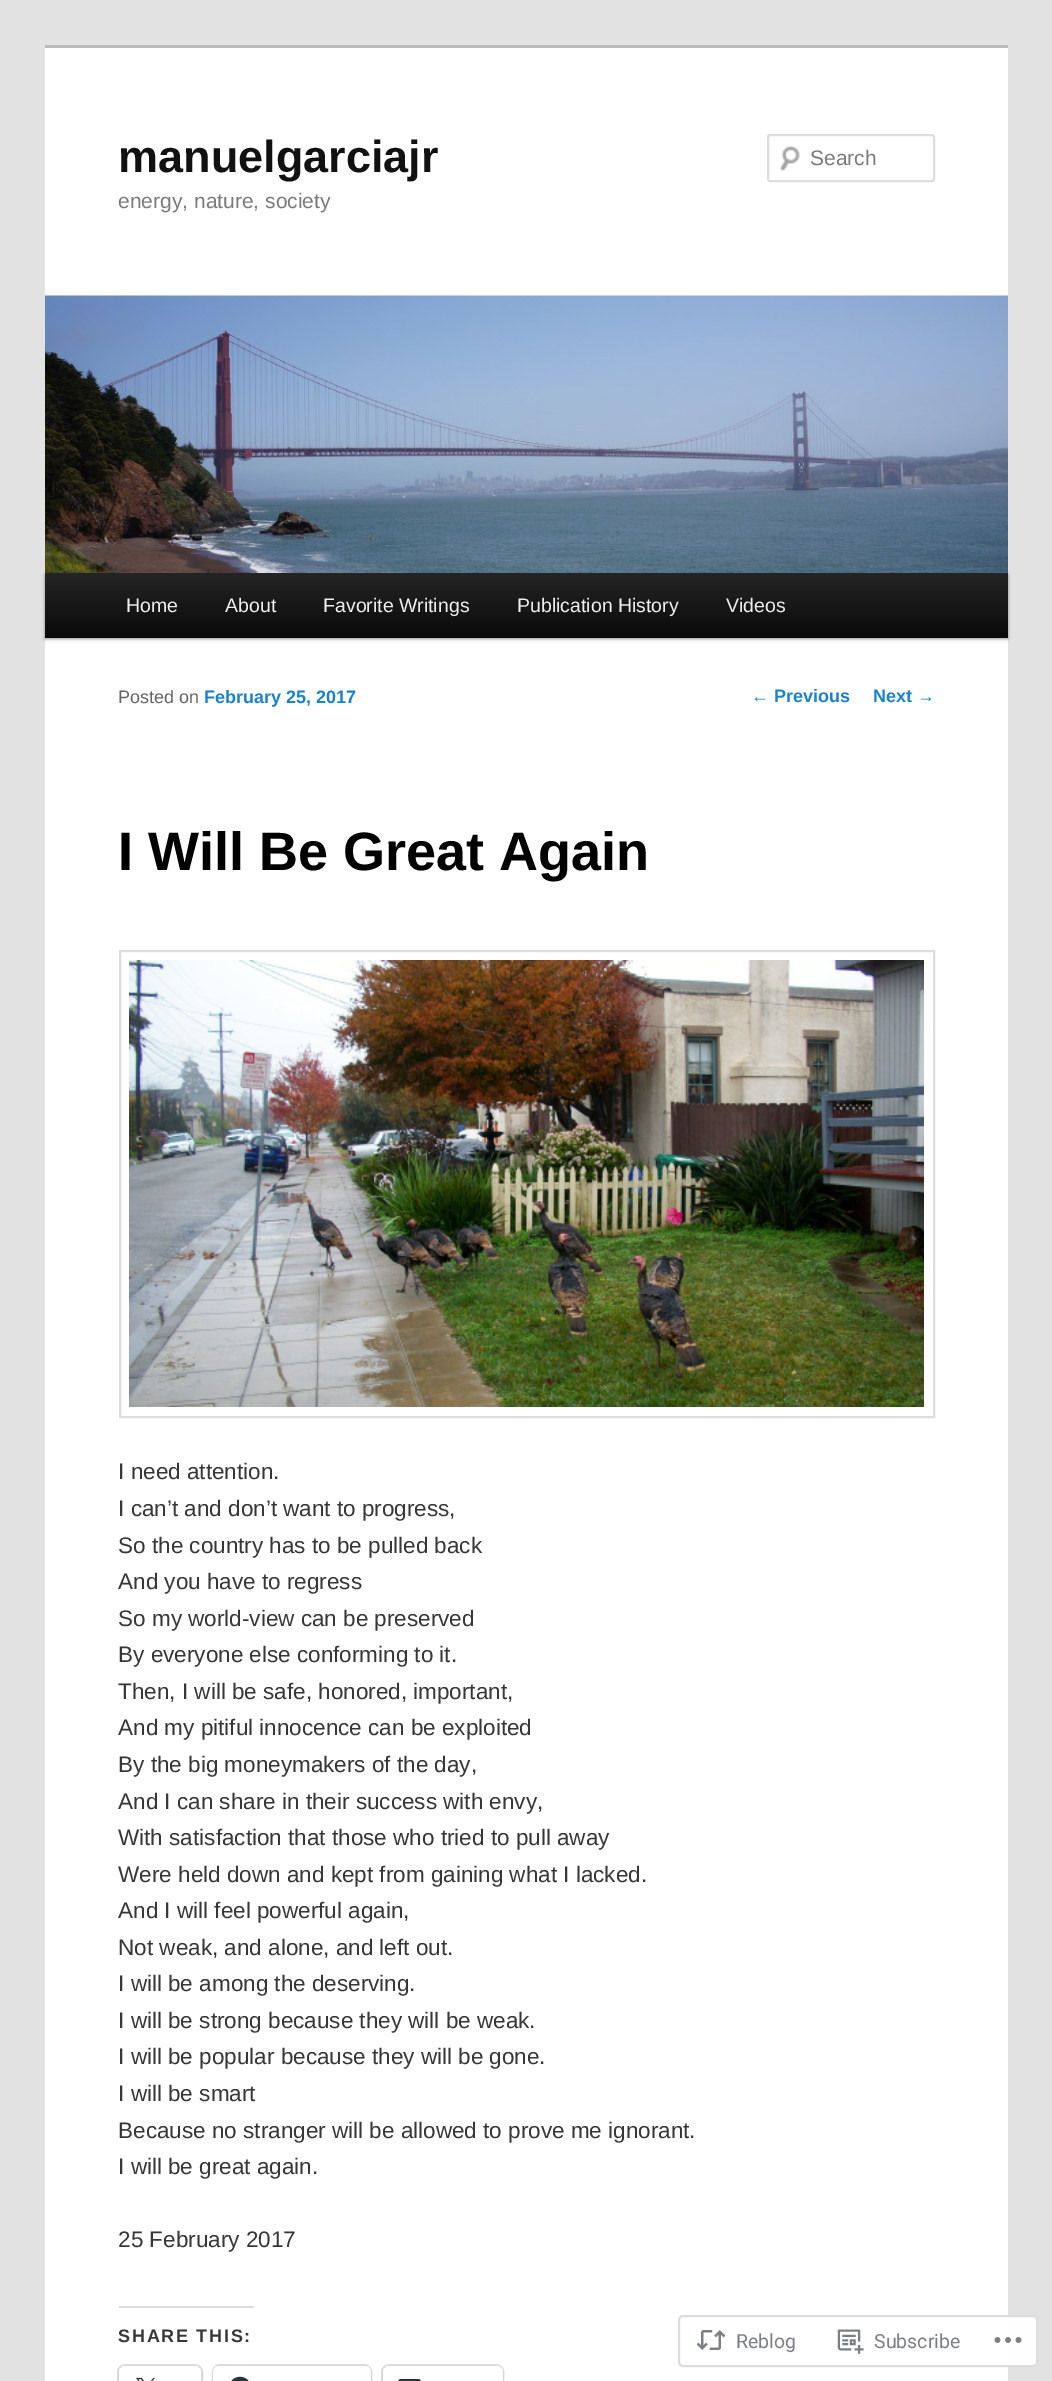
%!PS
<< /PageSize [1052 2381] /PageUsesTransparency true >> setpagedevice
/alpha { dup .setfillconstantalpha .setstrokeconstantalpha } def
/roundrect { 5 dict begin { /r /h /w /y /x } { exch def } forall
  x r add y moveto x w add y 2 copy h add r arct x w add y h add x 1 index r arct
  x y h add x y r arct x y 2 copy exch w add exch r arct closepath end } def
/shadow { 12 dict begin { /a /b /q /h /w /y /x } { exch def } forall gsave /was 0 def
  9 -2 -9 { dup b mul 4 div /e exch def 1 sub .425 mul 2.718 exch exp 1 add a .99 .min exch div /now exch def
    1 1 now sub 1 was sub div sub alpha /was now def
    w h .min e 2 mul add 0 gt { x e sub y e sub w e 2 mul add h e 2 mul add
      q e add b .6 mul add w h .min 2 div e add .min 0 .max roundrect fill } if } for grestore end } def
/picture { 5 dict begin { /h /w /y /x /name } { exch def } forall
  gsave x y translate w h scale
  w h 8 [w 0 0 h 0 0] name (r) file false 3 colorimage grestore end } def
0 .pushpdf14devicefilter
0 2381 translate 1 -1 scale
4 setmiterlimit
0.886 setgray
0 0 1052 2381 rectfill
1 setgray
45 48 963 2333 rectfill
0.733 setgray
45 45 963 3 rectfill
/LiberationSans-Bold [45 0 0 -45 0 0] selectfont
0.067 setgray
118 172 moveto (manuelgarciajr) show
/LiberationSans-Regular [21 0 0 -21 0 0] selectfont
0.478 setgray
118 208 moveto (energy, nature, society) show
(img1.rgb) 780 145 20 27 picture
0.902 setgray
newpath 770 136 moveto 932 136 lineto 933 138 lineto 933 136 lineto 933 136 932 135 932 135 curveto 770 135 lineto 769 135 768 136 768 136 curveto 768 138 lineto 768 137 769 136 770 136 curveto closepath fill
0.867 setgray
2 setlinewidth
768 135 166 46 2 roundrect stroke
0.478 setgray
810 165 moveto (Search) show
0 setgray
45 575 963 64 0 1.5 0.4 shadow
(img2.rgb) 45 295 963 278 picture
gsave newpath 45 573 moveto 1008 573 lineto 1008 638 lineto 45 638 lineto closepath clip newpath
<< /ShadingType 2 /ColorSpace /DeviceRGB /Coords [527 573 527 638] /Extend [true true] /Function << /FunctionType 2 /Domain [0 1] /C0 [0.145 0.145 0.145] /C1 [0.039 0.039 0.039] /N 1 >> >> shfill grestore
/LiberationSans-Regular [19.5 0 0 -19.5 0 0] selectfont
0.933 setgray
126 612 moveto (Home) show
225 612 moveto (About) show
323 612 moveto (Favorite Writings) show
517 612 moveto (Publication History) show
726 612 moveto (Videos) show
/LiberationSans-Regular [18 0 0 -18 0 0] selectfont
0.4 setgray
118 703 moveto (Posted on) show
/LiberationSans-Bold [18 0 0 -18 0 0] selectfont
0.098 0.51 0.82 setrgbcolor
204 703 moveto (February 25, 2017) show
/LiberationSans-Bold [54 0 0 -54 0 0] selectfont
0 setgray
118 870 moveto (I Will Be Great Again) show
0.867 setgray
120 951 814 466 rectstroke
(img3.rgb) 129 960 795 447 picture
/LiberationSans-Regular [22.5 0 0 -22.5 0 0] selectfont
0.216 setgray
118 1479 moveto (I need attention.) show
118 1516 moveto (I can’t and don’t want to progress,) show
118 1553 moveto (So the country has to be pulled back) show
118 1589 moveto (And you have to regress) show
118 1626 moveto (So my world-view can be preserved) show
118 1662 moveto (By everyone else conforming to it.) show
118 1699 moveto (Then, I will be safe, honored, important,) show
118 1735 moveto (And my pitiful innocence can be exploited) show
118 1772 moveto (By the big moneymakers of the day,) show
118 1809 moveto (And I can share in their success with envy,) show
118 1845 moveto (With satisfaction that those who tried to pull away) show
118 1882 moveto (Were held down and kept from gaining what I lacked.) show
118 1918 moveto (And I will feel powerful again,) show
118 1955 moveto (Not weak, and alone, and left out.) show
118 1991 moveto (I will be among the deserving.) show
118 2028 moveto (I will be strong because they will be weak.) show
118 2064 moveto (I will be popular because they will be gone.) show
118 2101 moveto (I will be smart) show
118 2138 moveto (Because no stranger will be allowed to prove me ignorant.) show
118 2174 moveto (I will be great again.) show
118 2247 moveto (25 February 2017) show
0.863 0.863 0.871 setrgbcolor
119 2306 135 2 rectfill
/LiberationSans-Bold [18 0 0 -18 0 0] selectfont
0.216 setgray
118 2342 moveto 1.75 0 (SHARE THIS:) ashow
0.878 setgray
118 2365 84 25 7 roundrect stroke
0 setgray
119 2367 82 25 6 1.5 0.12 shadow
1 setgray
119 2366 82 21 6 roundrect fill
(img4.rgb) 136 2377 19 4 picture
0.878 setgray
213 2365 158 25 7 roundrect stroke
0 setgray
213 2367 158 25 6 1.5 0.12 shadow
1 setgray
213 2366 158 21 6 roundrect fill
(img5.rgb) 231 2376 18 5 picture
0.878 setgray
382 2365 121 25 7 roundrect stroke
0 setgray
383 2367 120 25 6 1.5 0.12 shadow
1 setgray
383 2366 120 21 6 roundrect fill
(img6.rgb) 398 2379 23 2 picture
/LiberationSans-Regular [18 0 0 -18 0 0] selectfont
0.098 0.51 0.82 setrgbcolor
751 702 moveto (←) show
/LiberationSans-Bold [18 0 0 -18 0 0] selectfont
774 702 moveto (Previous) show
873 702 moveto (Next) show
/LiberationSans-Regular [18 0 0 -18 0 0] selectfont
917 702 moveto (→) show
0.98 alpha
1 setgray
678 2315 360 52 5 roundrect fill
0.863 0.863 0.871 setrgbcolor
679 2316 358 50 4 roundrect stroke
1 alpha
(img7.rgb) 696 2330 30 20 picture
/Roboto-Regular [19.5 0 0 -19.5 0 0] selectfont
0.482 0.498 0.522 setrgbcolor
736 2348 moveto (Reblog) show
(img8.rgb) 837 2329 27 25 picture
874 2348 moveto (Subscribe) show
(img9.rgb) 994 2337 28 6 picture
.poppdf14devicefilter showpage
